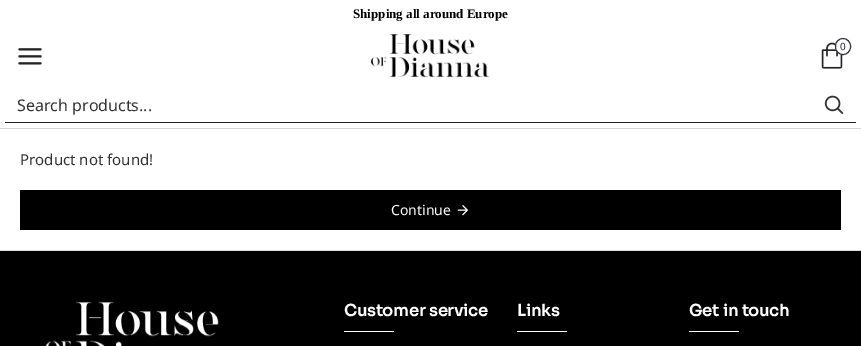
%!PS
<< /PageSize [861 346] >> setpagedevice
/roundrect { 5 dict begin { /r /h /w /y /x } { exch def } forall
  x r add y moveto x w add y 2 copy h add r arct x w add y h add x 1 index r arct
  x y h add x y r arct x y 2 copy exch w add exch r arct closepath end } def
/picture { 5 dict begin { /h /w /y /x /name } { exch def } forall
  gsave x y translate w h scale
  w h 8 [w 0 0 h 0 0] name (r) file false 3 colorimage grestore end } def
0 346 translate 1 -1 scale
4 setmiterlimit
1 setgray
0 0 861 346 rectfill
/LiberationSerif-Bold [13 0 0 -13 0 0] selectfont
0 setgray
353 18 moveto (Shipping all around Europe) show
(img1.rgb) 371 34 119 44 picture
(img2.rgb) 821 42 22 27 picture
1 setgray
835.5 38.5 15 16 7.5 roundrect gsave fill grestore
0.173 0.212 0.251 setrgbcolor
stroke
/NotoSans-Regular [10 0 0 -10 0 0] selectfont
0.133 setgray
840 50 moveto (0) show
(img3.rgb) 18 48 24 17 picture
5 122 851 1 rectfill
/NotoSans-Regular [16 0 0 -16 0 0] selectfont
0.2 setgray
17 111 moveto (Search products...) show
(img4.rgb) 824 95 20 19 picture
0.835 0.831 0.831 setrgbcolor
0 128 861 1 rectfill
/NotoSans-Regular [15 0 0 -15 0 0] selectfont
0.2 setgray
20 165 moveto (Product not found!) show
0 setgray
20 190 821 40 rectfill
/NotoSans-Regular [14 0 0 -14 0 0] selectfont
1 setgray
391 215 moveto (Continue) show
(img5.rgb) 457 205 12 11 picture
0 setgray
0 251 861 95 rectfill
0.867 setgray
0 250 861 1 rectfill
(img6.rgb) 45 301 174 45 picture
/Sora-Bold [16 0 0 -16 0 0] selectfont
1 setgray
344 316 moveto (Customer service) show
344 331 50 1 rectfill
517 316 moveto (Links) show
517 331 50 1 rectfill
689 316 moveto (Get in touch) show
689 331 50 1 rectfill
showpage
